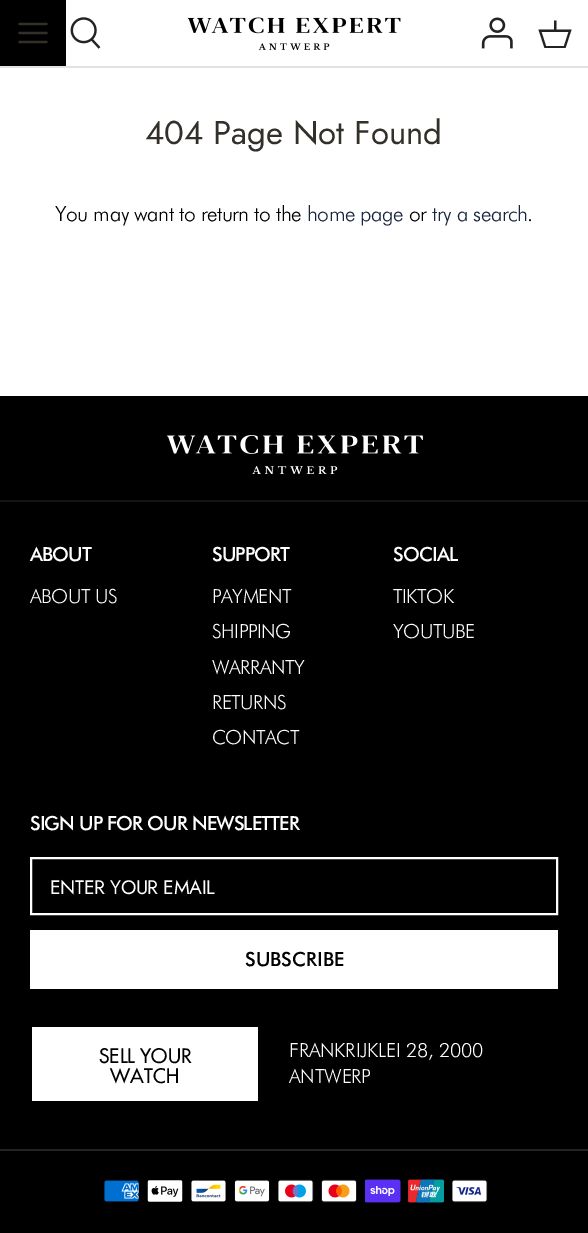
%!PS
<< /PageSize [588 1233] >> setpagedevice
/picture { 5 dict begin { /h /w /y /x /name } { exch def } forall
  gsave x y translate w h scale
  w h 8 [w 0 0 h 0 0] name (r) file false 3 colorimage grestore end } def
0 1233 translate 1 -1 scale
4 setmiterlimit
1 setgray
0 0 588 1233 rectfill
0.886 setgray
0 66 588 2 rectfill
0 setgray
0 0 66 66 rectfill
0.2 0.188 0.161 setrgbcolor
2.2 setlinewidth
1 setlinecap
1 setlinejoin
newpath 19.5 33 moveto 46.5 33 lineto 19.5 24 moveto 46.5 24 lineto 19.5 42 moveto 46.5 42 lineto stroke
(img1.rgb) 70 17 31 32 picture
(img2.rgb) 188 17 213 33 picture
(img3.rgb) 481 17 32 32 picture
0.137 setgray
newpath 554 29.5 moveto 554 20.5 lineto 556.5 20.5 lineto 556.5 29.5 lineto 571.5 29.5 lineto 565.5 48 lineto 544.5 48 lineto 538.5 29.5 lineto closepath 541.5 32 moveto 546 46 lineto 564 46 lineto 568.5 32 lineto closepath fill
/Jost-Regular [33 0 0 -33 0 0] selectfont
0.2 0.188 0.161 setrgbcolor
145 144 moveto (404 Page Not Found) show
/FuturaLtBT-Light [21 0 0 -21 0 0] selectfont
0 setgray
55 221 moveto -0.45 0 (You may want to return to the) ashow
0.086 0.141 0.239 setrgbcolor
307 221 moveto -0.45 0 (home page) ashow
0 setgray
409 221 moveto -0.45 0 (or) ashow
0.086 0.141 0.239 setrgbcolor
432 221 moveto -0.45 0 (try a search) ashow
0 setgray
527 221 moveto -0.45 0 (.) ashow
0 396 588 837 rectfill
0.075 setgray
0 500 588 2 rectfill
(img4.rgb) 167 435 256 39 picture
/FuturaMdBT-Medium [19.5 0 0 -19.5 0 0] selectfont
1 setgray
30 561 moveto -0.9 0 (ABOUT) ashow
/FuturaLtBT-Light [19.5 0 0 -19.5 0 0] selectfont
30 603 moveto -0.5 0 (ABOUT US) ashow
/FuturaMdBT-Medium [19.5 0 0 -19.5 0 0] selectfont
212 561 moveto -0.9 0 (SUPPORT) ashow
/FuturaLtBT-Light [19.5 0 0 -19.5 0 0] selectfont
212 603 moveto -0.5 0 (PAYMENT) ashow
212 638 moveto -0.5 0 (SHIPPING) ashow
212 674 moveto -0.5 0 (WARRANTY) ashow
212 709 moveto -0.5 0 (RETURNS) ashow
212 744 moveto -0.5 0 (CONTACT) ashow
/FuturaMdBT-Medium [19.5 0 0 -19.5 0 0] selectfont
393 561 moveto -0.9 0 (SOCIAL) ashow
/FuturaLtBT-Light [19.5 0 0 -19.5 0 0] selectfont
393 603 moveto -0.5 0 (TIKTOK) ashow
393 638 moveto -0.5 0 (YOUTUBE) ashow
/FuturaMdBT-Medium [19.5 0 0 -19.5 0 0] selectfont
30 830 moveto -0.9 0 (SIGN UP FOR OUR NEWSLETTER) ashow
2 setlinewidth
0 setlinecap
0 setlinejoin
31 858 526 56 rectstroke
/Jost-Regular [19.5 0 0 -19.5 0 0] selectfont
50 894 moveto -0.4 0 (ENTER YOUR EMAIL) ashow
30 930 528 59 rectfill
/FuturaMdBT-Medium [19.5 0 0 -19.5 0 0] selectfont
0 setgray
245 966 moveto (SUBSCRIBE) show
1 setgray
32 1027 226 74 rectfill
/Futura-Medium [19.5 0 0 -19.5 0 0] selectfont
0 setgray
99 1063 moveto (SELL YOUR) show
110 1083 moveto (WATCH) show
/FuturaLtBT-Light [19.5 0 0 -19.5 0 0] selectfont
1 setgray
289 1057 moveto -0.2 0 (FRANKRIJKLEI 28, 2000) ashow
289 1083 moveto -0.2 0 (ANTWERP) ashow
0.141 setgray
0 1149 588 2 rectfill
(img5.rgb) 104 1180 35 22 picture
(img6.rgb) 147 1180 36 22 picture
(img7.rgb) 191 1180 35 22 picture
(img8.rgb) 234 1180 36 22 picture
(img9.rgb) 278 1179 36 24 picture
(img10.rgb) 321 1179 36 24 picture
(img11.rgb) 365 1179 36 24 picture
(img12.rgb) 408 1179 36 24 picture
(img13.rgb) 452 1179 36 24 picture
showpage
